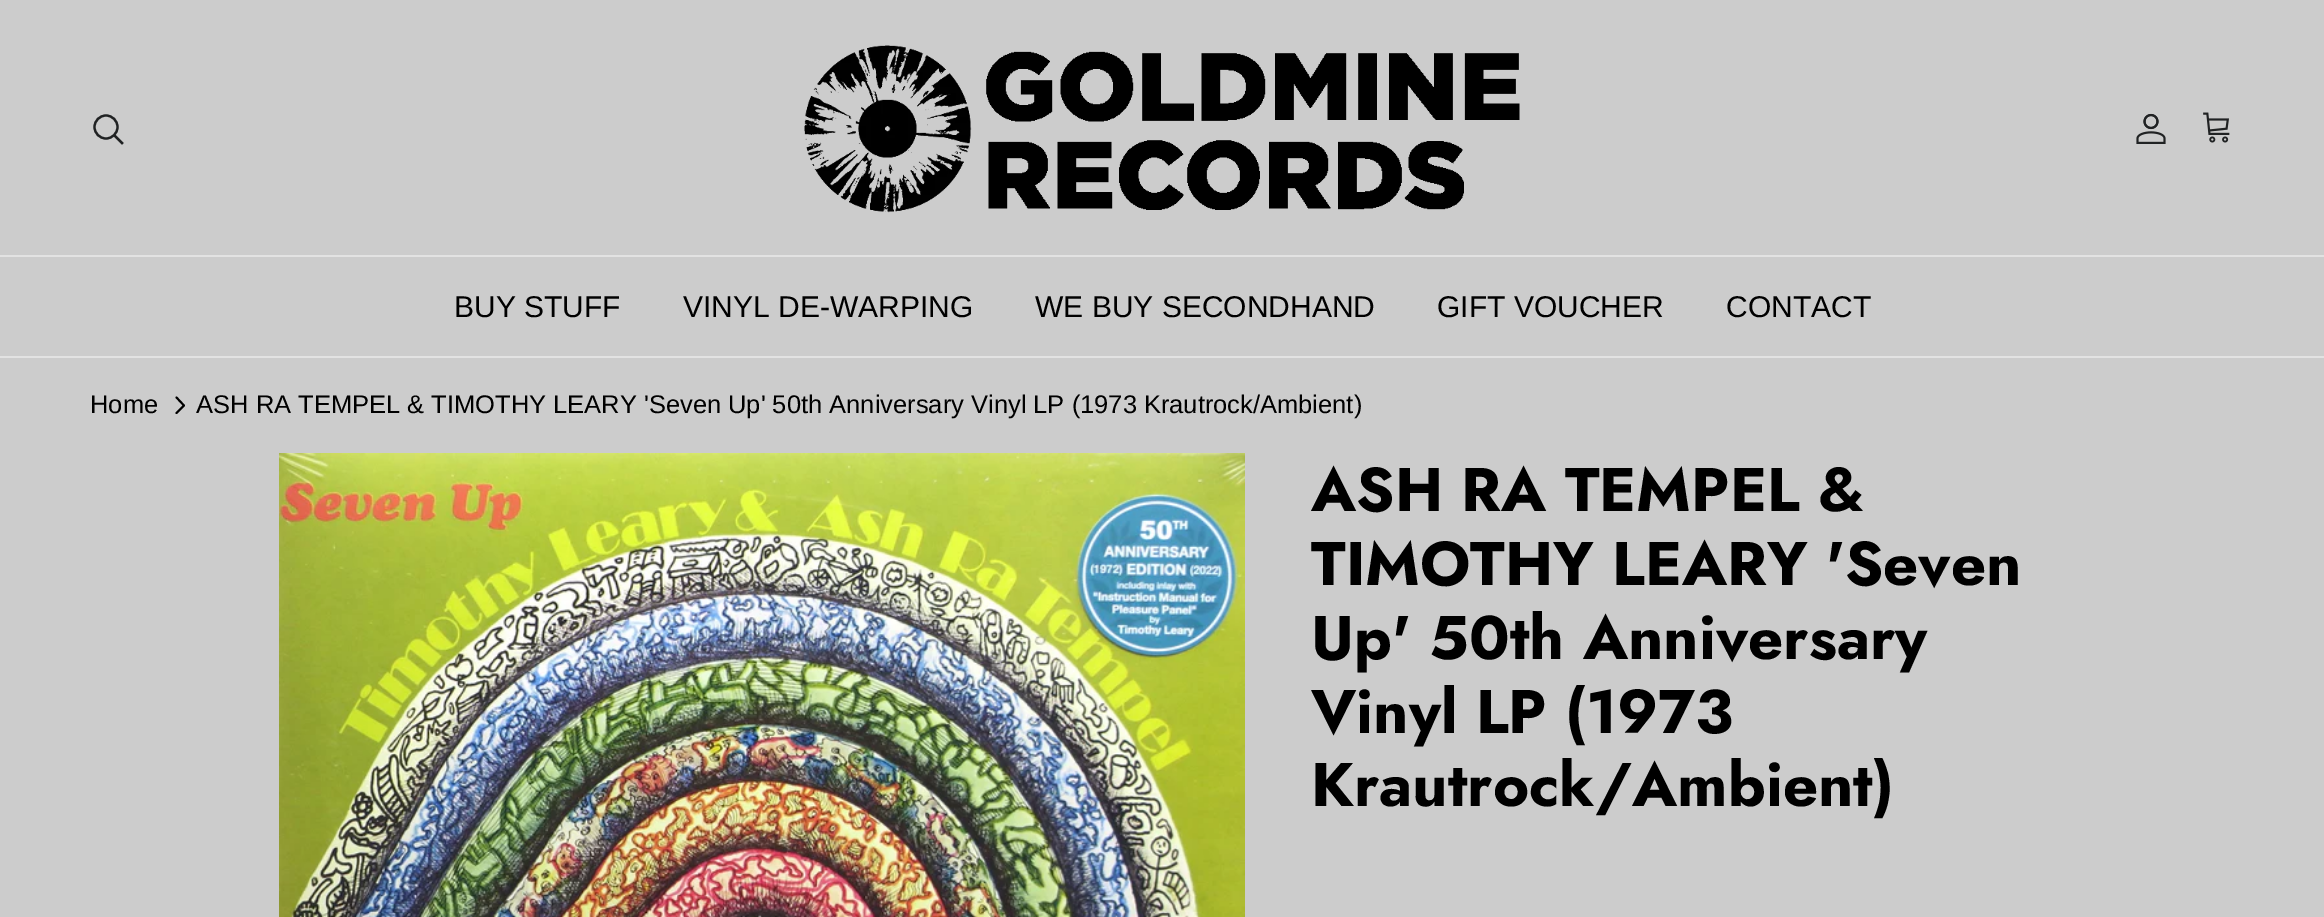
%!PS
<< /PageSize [2324 917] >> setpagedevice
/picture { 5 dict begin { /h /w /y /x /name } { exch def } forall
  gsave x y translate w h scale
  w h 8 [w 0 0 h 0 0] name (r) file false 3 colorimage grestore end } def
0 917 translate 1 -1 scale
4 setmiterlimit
0.8 setgray
0 0 2324 917 rectfill
0.886 setgray
0 255 2324 2 rectfill
0.125 0.133 0.137 setrgbcolor
2.2 setlinewidth
newpath 106 127 11.5 0 360 arc closepath stroke
2 setlinecap
newpath 115.5 136.5 moveto 122 143 lineto stroke
(img1.rgb) 804 45 716 168 picture
(img2.rgb) 2136 113 30 31 picture
(img3.rgb) 2203 112 27 31 picture
0.886 setgray
0 356 2324 2 rectfill
/LiberationSans-Regular [30 0 0 -30 0 0] selectfont
0 setgray
454 317 moveto (BUY STUFF) show
683 317 moveto (VINYL DE-WARPING) show
1035 317 moveto (WE BUY SECONDHAND) show
1437 317 moveto (GIFT VOUCHER) show
1726 317 moveto (CONTACT) show
/LiberationSans-Regular [25.5 0 0 -25.5 0 0] selectfont
90 413 moveto (Home) show
1.9 setlinewidth
1 setlinecap
1 setlinejoin
newpath 176.5 413 moveto 184 405.5 lineto 176.5 397.5 lineto stroke
196 413 moveto (ASH RA TEMPEL & TIMOTHY LEARY 'Seven Up' 50th Anniversary Vinyl LP \(1973 Krautrock/Ambient\)) show
(img4.rgb) 279 453 966 464 picture
/Jost-Bold [61.5 0 0 -61.5 0 0] selectfont
1311 511 moveto (ASH RA TEMPEL &) show
1311 585 moveto (TIMOTHY LEARY 'Seven) show
1311 659 moveto (Up' 50th Anniversary) show
1311 733 moveto (Vinyl LP \(1973) show
1311 806 moveto (Krautrock/Ambient\)) show
showpage
